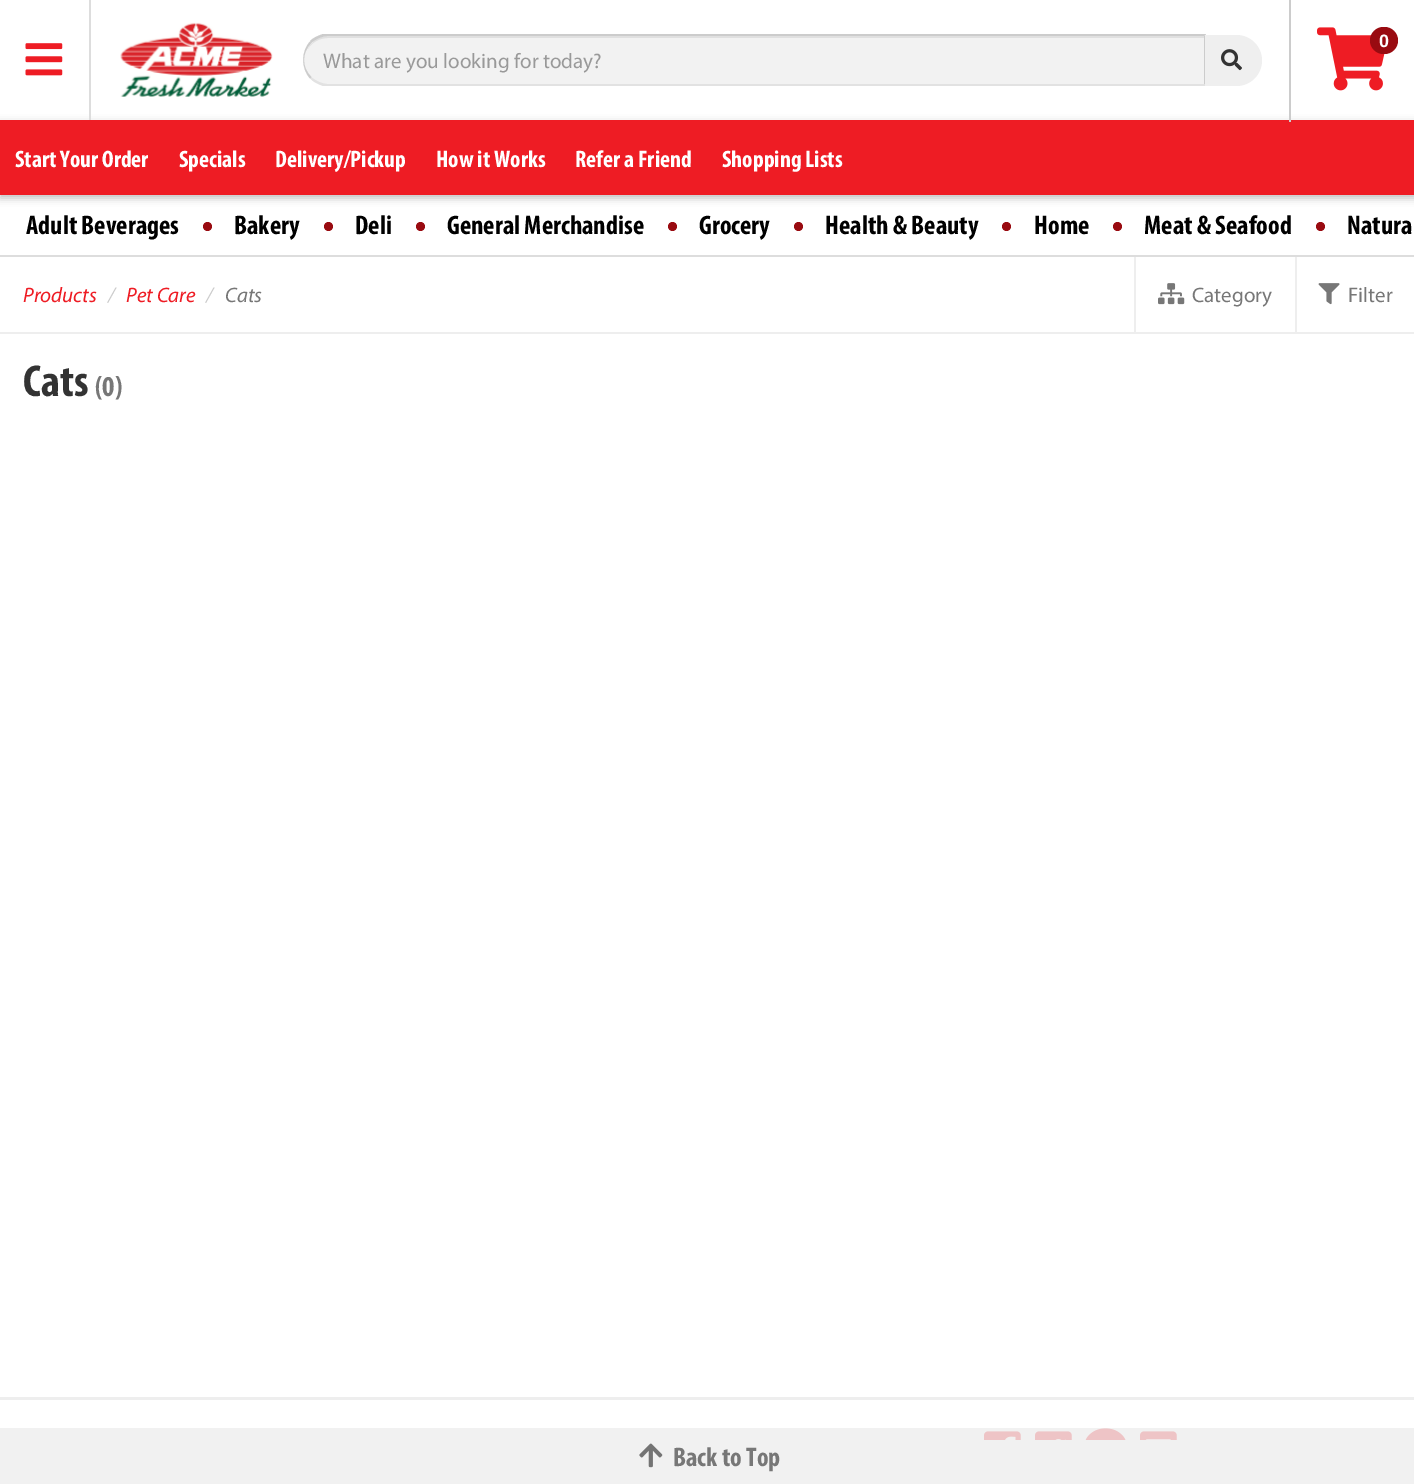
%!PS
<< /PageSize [1414 1484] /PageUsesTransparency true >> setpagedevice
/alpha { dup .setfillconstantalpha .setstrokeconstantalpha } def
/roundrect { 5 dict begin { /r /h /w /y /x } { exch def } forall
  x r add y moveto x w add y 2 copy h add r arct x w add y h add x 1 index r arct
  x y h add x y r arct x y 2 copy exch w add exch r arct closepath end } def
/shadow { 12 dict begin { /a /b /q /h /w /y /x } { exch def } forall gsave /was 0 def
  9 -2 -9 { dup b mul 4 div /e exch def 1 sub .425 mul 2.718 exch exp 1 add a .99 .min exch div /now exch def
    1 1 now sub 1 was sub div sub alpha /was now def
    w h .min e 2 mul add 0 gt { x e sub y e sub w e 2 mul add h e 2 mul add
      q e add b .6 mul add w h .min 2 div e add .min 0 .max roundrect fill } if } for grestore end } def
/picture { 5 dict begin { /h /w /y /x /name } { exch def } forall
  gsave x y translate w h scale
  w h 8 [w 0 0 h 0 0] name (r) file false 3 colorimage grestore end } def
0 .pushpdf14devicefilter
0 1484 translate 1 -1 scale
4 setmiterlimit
1 setgray
0 0 1414 1484 rectfill
0.945 setgray
0 1428 1414 56 rectfill
0 setgray
0 123 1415 75 0 4 0.25 shadow
0.867 setgray
89 0 2 120 rectfill
(img1.rgb) 25 43 38 33 picture
(img2.rgb) 120 22 153 75 picture
0.933 0.11 0.141 setrgbcolor
0 120 1414 75 rectfill
0.8 setgray
1289 0 2 122 rectfill
(img3.rgb) 1317 27 68 64 picture
0.6 0.043 0.067 setrgbcolor
1370 27 28 27 13.5 roundrect fill
/LiberationSans-Bold [18 0 0 -18 0 0] selectfont
1 setgray
1379 47 moveto (0) show
0.949 setgray
newpath 328.5 35 moveto 1206 35 lineto 1206 86 lineto 328.5 86 lineto 314.5 86 303 74.5 303 60.5 curveto 303 46.5 314.5 35 328.5 35 curveto closepath fill
0.878 setgray
newpath 328 38 moveto 1204 38 lineto 1204 84 lineto 1205 84 lineto 1205 36 lineto 329 36 lineto 320 36 312 41 308 49 curveto 312 42 320 38 328 38 curveto closepath fill
0.8 setgray
newpath 328 36 moveto 322 36 316 39 311 43 curveto 310 41 lineto 313 38 317 36 323 34 curveto 1206 34 lineto 1204 36 lineto closepath fill
newpath 1206 34 moveto 1204 36 lineto 1204 84 lineto 1206 86 lineto closepath fill
0.886 setgray
newpath 1206 86 moveto 323 86 lineto 318 84 313 82 310 78 curveto 311 77 lineto 316 81 322 84 328 84 curveto 1204 84 lineto closepath fill
0.8 setgray
newpath 310 78.5 moveto 301 68.5 301 51 310 41.5 curveto 311.5 43 lineto 301.5 52.5 301.5 67.5 311.5 77 curveto closepath fill
/Myriad-Regular [21 0 0 -21 0 0] selectfont
0.6 setgray
323 68 moveto (What are you looking for today?) show
0.937 setgray
newpath 1205 35 moveto 1236.5 35 lineto 1250.5 35 1262 46.5 1262 60.5 curveto 1262 74.5 1250.5 86 1236.5 86 curveto 1205 86 lineto closepath fill
(img4.rgb) 1221 49 21 22 picture
/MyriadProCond-Bold [24 0 0 -24 0 0] selectfont
1 setgray
15 167 moveto (Start Your Order) show
179 167 moveto (Specials) show
275 167 moveto (Delivery/Pickup) show
436 167 moveto (How it Works) show
575 167 moveto (Refer a Friend) show
722 167 moveto (Shopping Lists) show
/MyriadProCond-Bold [27 0 0 -27 0 0] selectfont
0 setgray
26 234 moveto (Adult Beverages) show
0.6 0.043 0.067 setrgbcolor
newpath 207.5 226.5 4.5 0 360 arc closepath fill
0 setgray
234 234 moveto (Bakery) show
0.6 0.043 0.067 setrgbcolor
newpath 328.5 226.5 4.5 0 360 arc closepath fill
0 setgray
355 234 moveto (Deli) show
0.6 0.043 0.067 setrgbcolor
newpath 420.5 226.5 4.5 0 360 arc closepath fill
0 setgray
447 234 moveto (General Merchandise) show
0.6 0.043 0.067 setrgbcolor
newpath 672.5 226.5 4.5 0 360 arc closepath fill
0 setgray
699 234 moveto (Grocery) show
0.6 0.043 0.067 setrgbcolor
newpath 798.5 226.5 4.5 0 360 arc closepath fill
0 setgray
825 234 moveto (Health & Beauty) show
0.6 0.043 0.067 setrgbcolor
newpath 1006.5 226.5 4.5 0 360 arc closepath fill
0 setgray
1034 234 moveto (Home) show
0.6 0.043 0.067 setrgbcolor
newpath 1117.5 226.5 4.5 0 360 arc closepath fill
0 setgray
1144 234 moveto (Meat & Seafood) show
0.6 0.043 0.067 setrgbcolor
newpath 1320.5 226.5 4.5 0 360 arc closepath fill
0 setgray
1347 234 moveto (Natura) show
0.867 setgray
0 255 1414 2 rectfill
0.933 setgray
0 332 1414 2 rectfill
/Myriad-Italic [21 0 0 -21 0 0] selectfont
0.933 0.11 0.141 setrgbcolor
23 302 moveto (Products) show
0.8 setgray
108 302 moveto (/) show
0.933 0.11 0.141 setrgbcolor
126 302 moveto (Pet Care) show
0.8 setgray
206 302 moveto (/) show
0.467 setgray
225 302 moveto (Cats) show
0.933 setgray
1134 257 2 75 rectfill
(img5.rgb) 1158 283 27 22 picture
/Myriad-Regular [21 0 0 -21 0 0] selectfont
0.467 setgray
1192 302 moveto (Category) show
0.933 setgray
1295 257 2 75 rectfill
(img6.rgb) 1318 283 22 22 picture
0.467 setgray
1348 302 moveto (Filter) show
/MyriadProCond-Bold [45 0 0 -45 0 0] selectfont
0.2 setgray
23 396 moveto (Cats) show
/MyriadProCond-Bold [29 0 0 -29 0 0] selectfont
0.467 setgray
95 396 moveto (\(0\)) show
(img7.rgb) 639 1443 24 25 picture
/MyriadProCond-Bold [27 0 0 -27 0 0] selectfont
673 1466 moveto (Back to Top) show
0.933 setgray
0 1397 1414 3 rectfill
(img8.rgb) 984 1431 37 9 picture
(img9.rgb) 1035 1431 37 9 picture
(img10.rgb) 1085 1428 41 12 picture
(img11.rgb) 1140 1431 37 9 picture
.poppdf14devicefilter showpage
